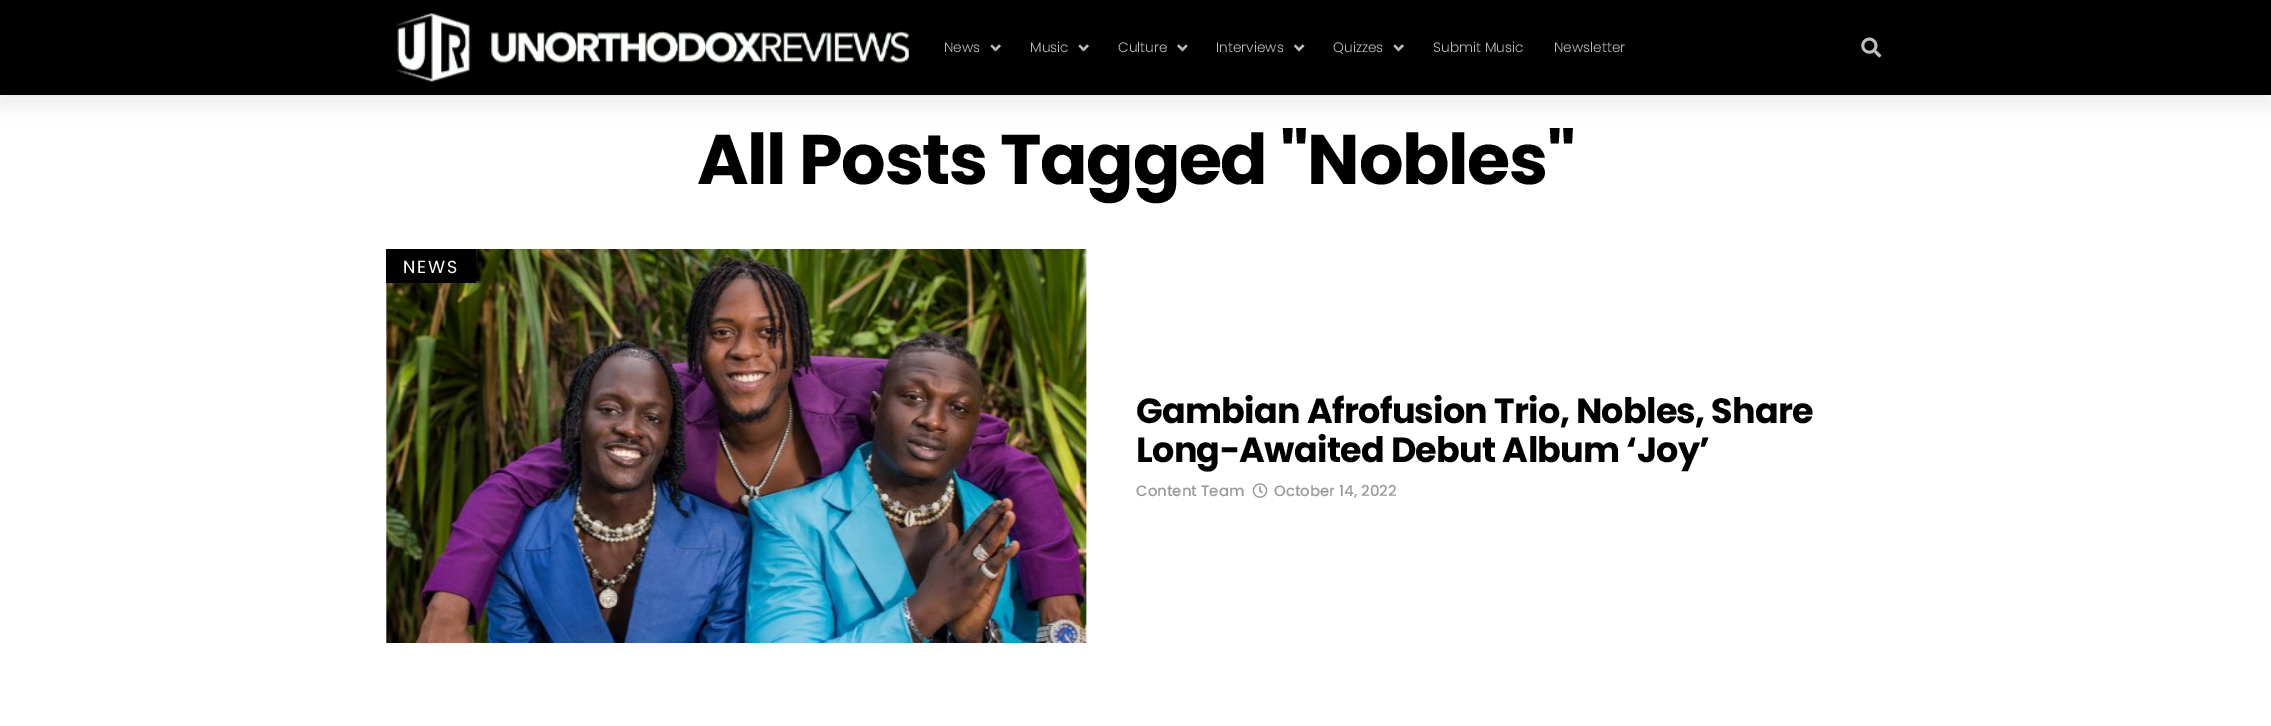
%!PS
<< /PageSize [2271 726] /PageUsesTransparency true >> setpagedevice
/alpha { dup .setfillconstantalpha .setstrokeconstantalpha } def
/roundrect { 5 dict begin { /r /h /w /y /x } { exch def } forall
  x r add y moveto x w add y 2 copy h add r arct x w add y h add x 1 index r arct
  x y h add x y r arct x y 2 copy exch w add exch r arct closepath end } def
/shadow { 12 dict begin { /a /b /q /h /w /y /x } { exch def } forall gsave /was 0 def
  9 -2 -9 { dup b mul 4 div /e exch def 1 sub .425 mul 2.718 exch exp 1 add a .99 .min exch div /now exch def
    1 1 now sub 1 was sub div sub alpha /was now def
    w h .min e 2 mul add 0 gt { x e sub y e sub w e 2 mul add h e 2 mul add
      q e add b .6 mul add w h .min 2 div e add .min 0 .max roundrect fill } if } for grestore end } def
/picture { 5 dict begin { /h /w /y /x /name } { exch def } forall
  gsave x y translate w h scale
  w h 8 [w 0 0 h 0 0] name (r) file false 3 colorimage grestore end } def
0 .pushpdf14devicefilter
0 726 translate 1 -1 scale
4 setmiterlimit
1 setgray
0 0 2271 726 rectfill
0.082 0.082 0.118 setrgbcolor
0 10 2271 95 0 10 0.08 shadow
0 setgray
0 0 2271 95 rectfill
(img1.rgb) 396 13 513 70 picture
/Poppins-Light [13.75 0 0 -13.75 0 0] selectfont
0.749 setgray
944 52 moveto (News) show
newpath 1001 46 moveto 995.5 51.5 lineto 995.5 48 lineto 999 44.5 lineto closepath fill
0.75 alpha
1 setgray
newpath 995.5 51.5 moveto 990.5 46 lineto 992 44.5 lineto 995.5 48 lineto closepath fill
1 alpha
0.749 setgray
1030 52 moveto (Music) show
newpath 1089 46 moveto 1083.5 51.5 lineto 1083.5 48 lineto 1087 44.5 lineto closepath fill
0.75 alpha
1 setgray
newpath 1083.5 51.5 moveto 1078.5 46 lineto 1080 44.5 lineto 1083.5 48 lineto closepath fill
1 alpha
0.749 setgray
1118 52 moveto (Culture) show
newpath 1187.5 46 moveto 1182.5 51.5 lineto 1182.5 48 lineto 1186 44.5 lineto closepath fill
0.75 alpha
1 setgray
newpath 1182.5 51.5 moveto 1177 46 lineto 1178.5 44.5 lineto 1182.5 48 lineto closepath fill
1 alpha
0.749 setgray
1216 52 moveto (Interviews) show
newpath 1304.5 46 moveto 1299 51.5 lineto 1299 48 lineto 1302.5 44.5 lineto closepath 1299 51.5 moveto 1294 46 lineto 1295.5 44.5 lineto 1299 48 lineto closepath fill
1333 52 moveto (Quizzes) show
newpath 1404 46 moveto 1398.5 51.5 lineto 1398.5 48 lineto 1402 44.5 lineto closepath fill
0.75 alpha
1 setgray
newpath 1398.5 51.5 moveto 1393.5 46 lineto 1395 44.5 lineto 1398.5 48 lineto closepath fill
1 alpha
0.749 setgray
1433 52 moveto (Submit Music) show
1554 52 moveto (Newsletter) show
(img2.rgb) 1861 37 21 21 picture
/Poppins-Bold [70 0 0 -70 0 0] selectfont
0 setgray
697 184 moveto -1.4 0 (All Posts Tagged "Nobles") ashow
(img3.rgb) 386 249 701 394 picture
386 249 90 34 rectfill
/Poppins-Regular [17.5 0 0 -17.5 0 0] selectfont
1 setgray
403 273 moveto 2 0 (NEWS) ashow
/Poppins-Bold [35 0 0 -35 0 0] selectfont
0 setgray
1136 423 moveto -0.7 0 (Gambian Afrofusion Trio, Nobles, Share) ashow
1136 462 moveto -0.7 0 (Long-Awaited Debut Album ‘Joy’) ashow
/Poppins-Medium [15 0 0 -15 0 0] selectfont
0.6 setgray
1136 496 moveto (Content Team) show
(img4.rgb) 1252 483 16 15 picture
1274 496 moveto (October 14, 2022) show
.poppdf14devicefilter showpage
